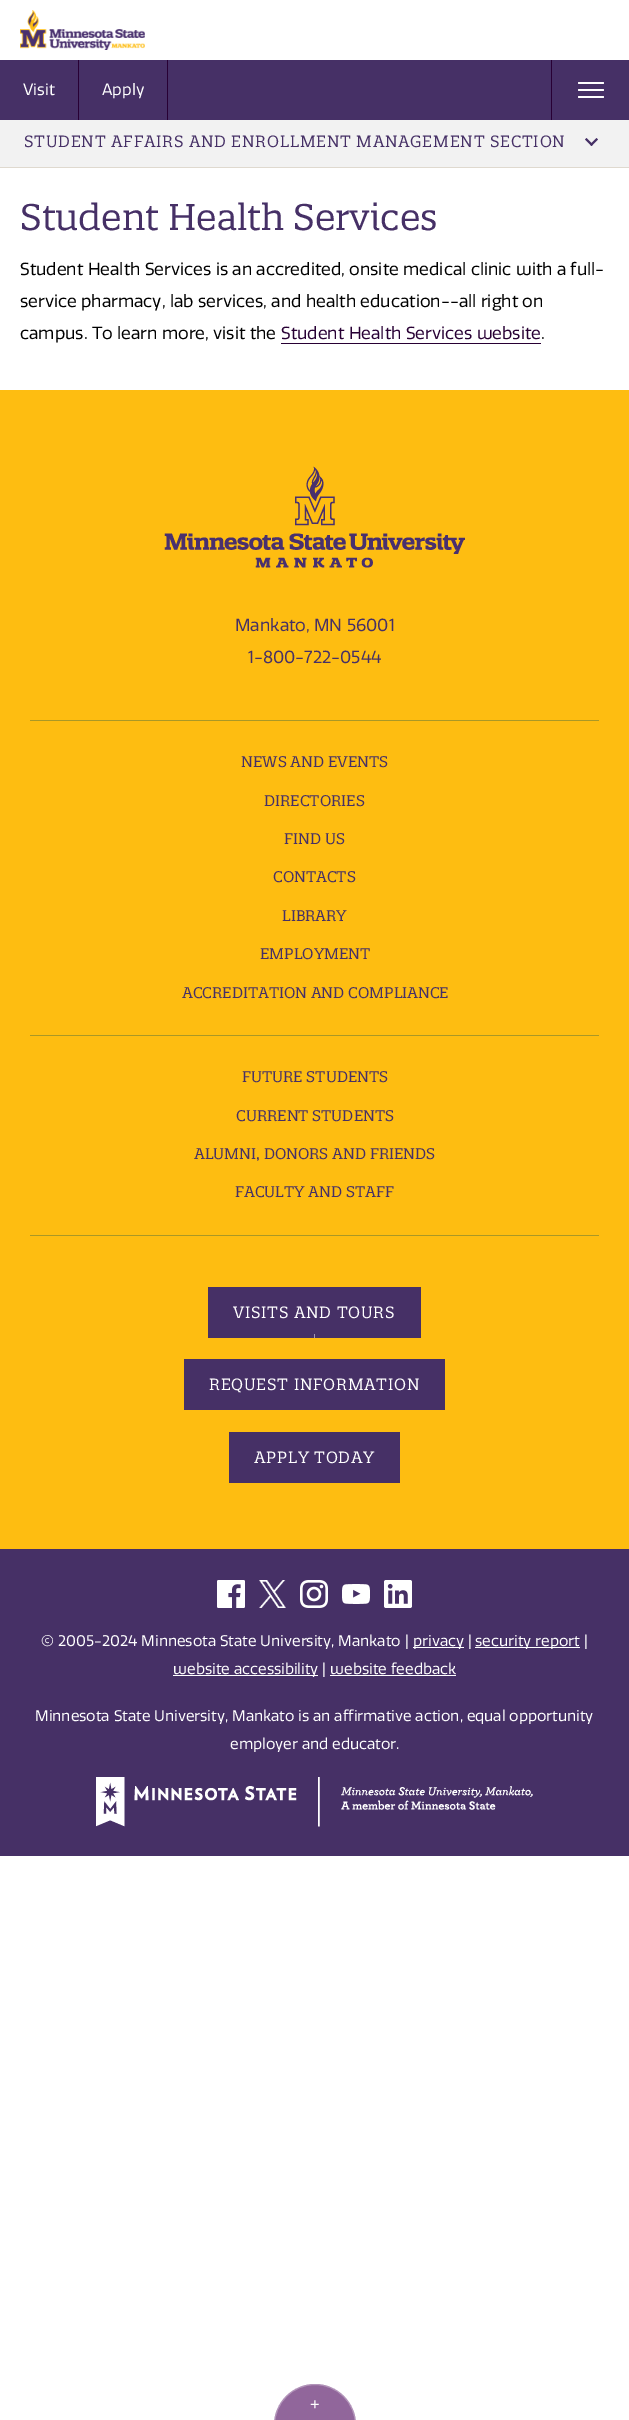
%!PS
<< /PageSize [629 2420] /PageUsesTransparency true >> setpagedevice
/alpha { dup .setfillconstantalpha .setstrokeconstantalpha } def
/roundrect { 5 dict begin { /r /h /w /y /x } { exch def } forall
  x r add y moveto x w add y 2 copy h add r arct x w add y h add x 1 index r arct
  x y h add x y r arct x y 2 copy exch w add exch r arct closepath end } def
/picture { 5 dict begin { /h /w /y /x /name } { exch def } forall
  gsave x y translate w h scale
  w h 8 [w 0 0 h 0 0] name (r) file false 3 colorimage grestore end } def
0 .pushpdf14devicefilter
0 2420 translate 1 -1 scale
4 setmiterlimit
1 setgray
0 0 629 2420 rectfill
(img1.rgb) 20 10 125 40 picture
0.275 0.188 0.4 setrgbcolor
0 60 629 60 rectfill
0.157 0 0.204 setrgbcolor
78 60 1 60 rectfill
/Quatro-Regular [15.85 0 0 -15.85 0 0] selectfont
1 setgray
23 95 moveto (Visit) show
0.157 0 0.204 setrgbcolor
167 60 1 60 rectfill
1 setgray
102 95 moveto (Apply) show
0.157 0 0.204 setrgbcolor
551 60 1 60 rectfill
1 setgray
578 82 26 2 1 roundrect fill
578 89 26 2 1 roundrect fill
578 96 26 2 1 roundrect fill
0.949 setgray
0 120 629 47 rectfill
0.875 0.851 0.812 setrgbcolor
0 167 629 1 rectfill
/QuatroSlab-Regular [15.85 0 0 -15.85 0 0] selectfont
0.275 0.188 0.4 setrgbcolor
24 147 moveto 0.8 0 (STUDENT AFFAIRS AND ENROLLMENT MANAGEMENT SECTION) ashow
newpath 596.5 138 moveto 598 139.5 lineto 591.5 146 lineto 590 144.5 lineto closepath fill
newpath 586.5 138 moveto 593 144.5 lineto 591.5 146 lineto 585 139.5 lineto closepath fill
/QuatroSlab-Regular [36 0 0 -36 0 0] selectfont
20 230 moveto (Student Health Services) show
/Quatro-Regular [17 0 0 -17 0 0] selectfont
0 setgray
20 275 moveto (Student Health Services is an accredited, onsite medical clinic with a full-) show
20 307 moveto (service pharmacy, lab services, and health education--all right on) show
20 339 moveto (campus. To learn more, visit the) show
0.157 0 0.204 setrgbcolor
281 339 moveto (Student Health Services website) show
281 343 260 1 rectfill
0 setgray
541 339 moveto (.) show
0.996 0.741 0.067 setrgbcolor
0 390 629 1159 rectfill
(img2.rgb) 164 466 301 102 picture
0.275 0.188 0.4 setrgbcolor
235 631 moveto (Mankato, MN 56001) show
248 663 moveto (1-800-722-0544) show
0.667 0.596 0.149 setrgbcolor
30 720 569 1 rectfill
/QuatroSlab-Regular [15 0 0 -15 0 0] selectfont
0.275 0.188 0.4 setrgbcolor
241 767 moveto (NEWS AND EVENTS) show
264 806 moveto (DIRECTORIES) show
284 844 moveto (FIND US) show
273 882 moveto (CONTACTS) show
282 921 moveto (LIBRARY) show
260 959 moveto (EMPLOYMENT) show
182 998 moveto (ACCREDITATION AND COMPLIANCE) show
0.667 0.596 0.149 setrgbcolor
30 1035 569 1 rectfill
0.275 0.188 0.4 setrgbcolor
242 1082 moveto (FUTURE STUDENTS) show
236 1121 moveto (CURRENT STUDENTS) show
194 1159 moveto (ALUMNI, DONORS AND FRIENDS) show
235 1197 moveto (FACULTY AND STAFF) show
0.667 0.596 0.149 setrgbcolor
30 1235 569 1 rectfill
0.275 0.188 0.4 setrgbcolor
208 1287 213 51 rectfill
/QuatroSlab-Regular [15.85 0 0 -15.85 0 0] selectfont
1 setgray
233 1318 moveto 0.8 0 (VISITS AND TOURS) ashow
0.639 0.596 0.702 setrgbcolor
314 1334 1 4 rectfill
0.275 0.188 0.4 setrgbcolor
184 1359 261 51 rectfill
1 setgray
209 1390 moveto 0.8 0 (REQUEST INFORMATION) ashow
0.275 0.188 0.4 setrgbcolor
229 1432 171 51 rectfill
1 setgray
254 1463 moveto 0.8 0 (APPLY TODAY) ashow
0.275 0.188 0.4 setrgbcolor
0 1549 629 307 rectfill
(img3.rgb) 217 1580 28 28 picture
(img4.rgb) 259 1580 27 28 picture
(img5.rgb) 300 1580 28 28 picture
(img6.rgb) 342 1584 28 20 picture
(img7.rgb) 384 1580 28 28 picture
/Quatro-Regular [15 0 0 -15 0 0] selectfont
1 setgray
41 1646 moveto (© 2005-2024 Minnesota State University, Mankato |) show
413 1647 51 1 rectfill
413 1646 moveto (privacy |) show
475 1647 105 1 rectfill
475 1646 moveto (security report |) show
173 1675 145 1 rectfill
173 1674 moveto (website accessibility | website feedback) show
330 1675 126 1 rectfill
35 1721 moveto (Minnesota State University, Mankato is an affirmative action, equal opportunity) show
230 1749 moveto (employer and educator.) show
(img8.rgb) 96 1777 437 50 picture
0.569 0.4 0.608 setrgbcolor
newpath 315 2384 moveto 337.5 2384 356 2402.5 356 2425 curveto 356 2420 lineto 274 2420 lineto 274 2425 lineto 274 2402.5 292.5 2384 315 2384 curveto closepath fill
0.3 alpha
1 setgray
274.5 2384.5 81 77 40.5 roundrect stroke
/Quatro-Regular [17 0 0 -17 0 0] selectfont
1 alpha
310 2409 moveto (+) show
.poppdf14devicefilter showpage
